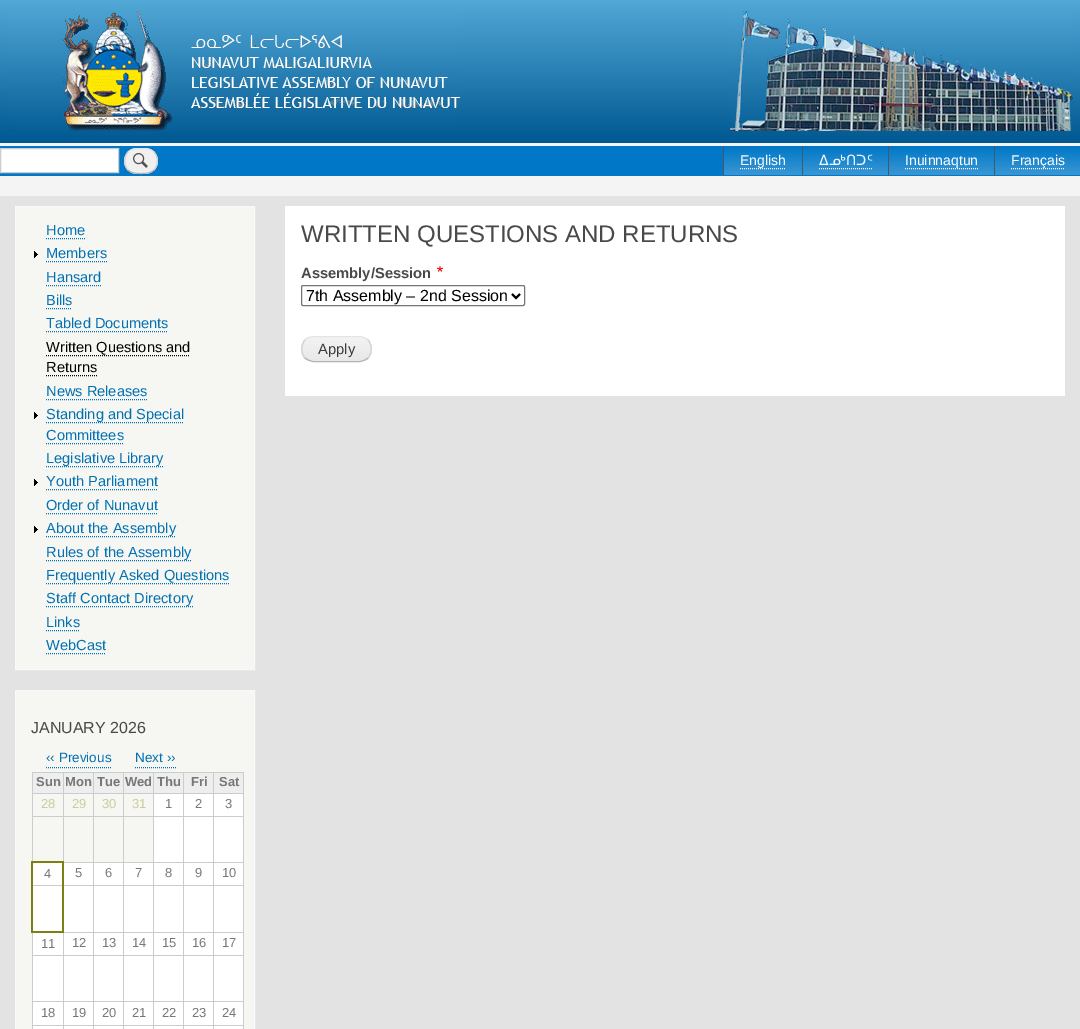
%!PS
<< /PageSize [1080 1029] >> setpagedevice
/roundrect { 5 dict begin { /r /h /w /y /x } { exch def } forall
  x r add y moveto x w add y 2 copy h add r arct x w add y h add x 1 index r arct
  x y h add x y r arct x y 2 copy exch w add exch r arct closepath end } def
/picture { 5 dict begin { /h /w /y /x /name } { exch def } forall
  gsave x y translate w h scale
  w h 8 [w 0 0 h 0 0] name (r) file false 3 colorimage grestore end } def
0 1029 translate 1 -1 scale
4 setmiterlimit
0.957 setgray
0 0 1080 1029 rectfill
gsave newpath 0 0 moveto 1080 0 lineto 1080 143 lineto 0 143 lineto closepath clip newpath
<< /ShadingType 2 /ColorSpace /DeviceRGB /Coords [540 0 540 143] /Extend [true true] /Function << /FunctionType 2 /Domain [0 1] /C0 [0.322 0.659 0.839] /C1 [0 0.345 0.573] /N 1 >> >> shfill grestore
(img1.rgb) 730 11 343 120 picture
(img2.rgb) 9 11 451 120 picture
0 0.467 0.78 setrgbcolor
0 146 1080 30 rectfill
1 setgray
newpath 0.5 148.5 moveto 118.5 148.5 lineto 118.5 172.5 lineto 0.5 172.5 lineto closepath gsave fill grestore
0.8 setgray
stroke
0.941 setgray
124 148 34 26 13 roundrect fill
(img3.rgb) 133 153 15 15 picture
0.894 setgray
newpath 128 152 moveto 132 148.5 136 148.5 141 148.5 curveto 146 148.5 150 148.5 154 152 curveto stroke
0.824 setgray
newpath 154 152 moveto 158.5 157 158.5 165 154 170 curveto stroke
0.706 setgray
newpath 154 170 moveto 150 173.5 146 173.5 141 173.5 curveto 136 173.5 132 173.5 128 170 curveto stroke
0.824 setgray
newpath 128 170 moveto 123.5 165 123.5 157 128 152 curveto stroke
gsave newpath 724 147 moveto 802 147 lineto 802 175 lineto 724 175 lineto closepath clip newpath
<< /ShadingType 2 /ColorSpace /DeviceRGB /Coords [763 175 763 146] /Extend [true true] /Function << /FunctionType 2 /Domain [0 1] /C0 [0.224 0.588 0.831] /C1 [0 0.471 0.78] /N 1 >> >> shfill grestore
0.267 0.349 0.4 setrgbcolor
723 146 1 29 rectfill
/LiberationSans-Regular [14 0 0 -14 0 0] selectfont
1 setgray
740 165 moveto (English) show
[1 1] 0 setdash
newpath 740 168.5 moveto 786 168.5 lineto stroke
gsave newpath 803 147 moveto 888 147 lineto 888 175 lineto 803 175 lineto closepath clip newpath
<< /ShadingType 2 /ColorSpace /DeviceRGB /Coords [846 175 846 146] /Extend [true true] /Function << /FunctionType 2 /Domain [0 1] /C0 [0.224 0.588 0.831] /C1 [0 0.471 0.78] /N 1 >> >> shfill grestore
0.267 0.349 0.4 setrgbcolor
802 146 1 29 rectfill
/DejaVuSans-Regular [14 0 0 -14 0 0] selectfont
1 setgray
819 165 moveto (ᐃᓄᒃᑎᑐᑦ) show
newpath 819 168.5 moveto 872 168.5 lineto stroke
gsave newpath 889 147 moveto 994 147 lineto 994 175 lineto 889 175 lineto closepath clip newpath
<< /ShadingType 2 /ColorSpace /DeviceRGB /Coords [942 175 942 146] /Extend [true true] /Function << /FunctionType 2 /Domain [0 1] /C0 [0.224 0.588 0.831] /C1 [0 0.471 0.78] /N 1 >> >> shfill grestore
0.267 0.349 0.4 setrgbcolor
888 146 1 29 rectfill
/LiberationSans-Regular [14 0 0 -14 0 0] selectfont
1 setgray
905 165 moveto (Inuinnaqtun) show
newpath 905 168.5 moveto 978 168.5 lineto stroke
gsave newpath 995 147 moveto 1080 147 lineto 1080 175 lineto 995 175 lineto closepath clip newpath
<< /ShadingType 2 /ColorSpace /DeviceRGB /Coords [1038 175 1038 146] /Extend [true true] /Function << /FunctionType 2 /Domain [0 1] /C0 [0.224 0.588 0.831] /C1 [0 0.471 0.78] /N 1 >> >> shfill grestore
0.267 0.349 0.4 setrgbcolor
994 146 1 29 rectfill
1 setgray
1011 165 moveto (Français) show
newpath 1011 168.5 moveto 1064 168.5 lineto stroke
0.89 setgray
0 196 1080 833 rectfill
0.965 0.965 0.949 setrgbcolor
newpath 15.5 206.5 moveto 254.5 206.5 lineto 254.5 669.5 lineto 15.5 669.5 lineto closepath gsave fill grestore
0.976 setgray
[] 0 setdash
stroke
/LiberationSans-Regular [14.6 0 0 -14.6 0 0] selectfont
0 0.443 0.702 setrgbcolor
46 235 moveto (Home) show
[1 1] 0 setdash
newpath 46 238.5 moveto 85 238.5 lineto stroke
(img4.rgb) 34 251 4 7 picture
46 258 moveto (Members) show
newpath 46 261.5 moveto 107 261.5 lineto stroke
46 282 moveto (Hansard) show
newpath 46 285.5 moveto 101 285.5 lineto stroke
46 305 moveto (Bills) show
newpath 46 308.5 moveto 72 308.5 lineto stroke
46 328 moveto (Tabled Documents) show
newpath 46 331.5 moveto 168 331.5 lineto stroke
0 setgray
46 352 moveto (Written Questions and) show
newpath 46 355.5 moveto 190 355.5 lineto stroke
46 372 moveto (Returns) show
newpath 46 375.5 moveto 97 375.5 lineto stroke
0 0.443 0.702 setrgbcolor
46 396 moveto (News Releases) show
newpath 46 399.5 moveto 147 399.5 lineto stroke
(img4.rgb) 34 412 4 7 picture
newpath 46 422.5 moveto 184 422.5 lineto stroke
46 419 moveto (Standing and Special) show
46 440 moveto (Committees) show
newpath 46 443.5 moveto 124 443.5 lineto stroke
newpath 46 466.5 moveto 163 466.5 lineto stroke
46 463 moveto (Legislative Library) show
(img4.rgb) 34 479 4 7 picture
46 486 moveto (Youth Parliament) show
newpath 46 489.5 moveto 158 489.5 lineto stroke
46 510 moveto (Order of Nunavut) show
newpath 46 513.5 moveto 158 513.5 lineto stroke
(img4.rgb) 34 526 4 7 picture
newpath 46 536.5 moveto 176 536.5 lineto stroke
46 533 moveto (About the Assembly) show
newpath 46 560.5 moveto 191 560.5 lineto stroke
46 557 moveto (Rules of the Assembly) show
newpath 46 583.5 moveto 229 583.5 lineto stroke
46 580 moveto (Frequently Asked Questions) show
newpath 46 606.5 moveto 193 606.5 lineto stroke
46 603 moveto (Staff Contact Directory) show
46 627 moveto (Links) show
newpath 46 630.5 moveto 80 630.5 lineto stroke
46 650 moveto (WebCast) show
newpath 46 653.5 moveto 106 653.5 lineto stroke
0.965 0.965 0.949 setrgbcolor
newpath 15.5 690.5 moveto 254.5 690.5 lineto 254.5 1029.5 lineto 15.5 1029.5 lineto closepath gsave fill grestore
0.976 setgray
[] 0 setdash
stroke
/LiberationSans-Regular [16 0 0 -16 0 0] selectfont
0.286 setgray
31 733 moveto (JANUARY 2026) show
0 0.443 0.702 setrgbcolor
[1 1] 0 setdash
newpath 46 767.5 moveto 111 767.5 lineto stroke
/LiberationSans-Regular [13.5 0 0 -13.5 0 0] selectfont
46 762 moveto (‹‹ Previous) show
newpath 135 767.5 moveto 176 767.5 lineto stroke
135 762 moveto (Next ››) show
0.933 setgray
33 773 30 20 rectfill
0.8 setgray
213 772 31 1 rectfill
213 793 31 1 rectfill
1 setgray
154 794 89 22 rectfill
0.8 setgray
32 816 212 1 rectfill
1 setgray
154 817 89 45 rectfill
0.8 setgray
64 862 180 1 rectfill
1 setgray
32 1026 212 3 rectfill
33 863 210 22 rectfill
0.8 setgray
32 885 212 1 rectfill
1 setgray
33 886 210 46 rectfill
0.8 setgray
64 932 180 1 rectfill
1 setgray
33 933 210 22 rectfill
0.8 setgray
32 955 212 1 rectfill
1 setgray
33 956 210 45 rectfill
0.8 setgray
32 1001 212 1 rectfill
1 setgray
33 1002 210 23 rectfill
0.8 setgray
32 1025 212 1 rectfill
213 816 1 213 rectfill
213 793 1 24 rectfill
183 793 31 1 rectfill
213 772 1 22 rectfill
183 772 31 1 rectfill
183 816 1 213 rectfill
183 793 1 24 rectfill
153 793 31 1 rectfill
183 772 1 22 rectfill
153 772 31 1 rectfill
153 816 1 213 rectfill
153 793 1 24 rectfill
123 793 31 1 rectfill
153 772 1 22 rectfill
123 772 31 1 rectfill
123 816 1 213 rectfill
123 793 1 24 rectfill
93 793 31 1 rectfill
123 772 1 22 rectfill
93 772 31 1 rectfill
93 816 1 213 rectfill
93 793 1 24 rectfill
63 793 31 1 rectfill
93 772 1 22 rectfill
63 772 31 1 rectfill
63 816 1 47 rectfill
63 793 1 24 rectfill
32 793 32 1 rectfill
63 772 1 22 rectfill
32 772 32 1 rectfill
32 816 1 47 rectfill
32 793 1 24 rectfill
32 772 1 22 rectfill
/LiberationSans-Bold [13 0 0 -13 0 0] selectfont
0.467 setgray
36 786 moveto (Sun) show
0.933 setgray
64 773 29 20 rectfill
0.467 setgray
65 786 moveto (Mon) show
0.933 setgray
94 773 29 20 rectfill
0.467 setgray
97 786 moveto (Tue) show
0.933 setgray
124 773 29 20 rectfill
0.467 setgray
125 786 moveto (Wed) show
0.933 setgray
154 773 29 20 rectfill
0.467 setgray
157 786 moveto (Thu) show
0.933 setgray
184 773 29 20 rectfill
0.467 setgray
191 786 moveto (Fri) show
0.933 setgray
214 773 29 20 rectfill
0.8 setgray
243 816 1 213 rectfill
243 793 1 24 rectfill
243 772 1 22 rectfill
0.467 setgray
219 786 moveto (Sat) show
/LiberationSans-Regular [13 0 0 -13 0 0] selectfont
0.8 0.8 0.6 setrgbcolor
41 808 moveto (28) show
72 808 moveto (29) show
102 808 moveto (30) show
132 808 moveto (31) show
0.467 setgray
165 808 moveto (1) show
195 808 moveto (2) show
225 808 moveto (3) show
0.8 setgray
32 932 1 97 rectfill
63 932 1 97 rectfill
0.486 0.498 0.071 setrgbcolor
31 861 33 2 rectfill
62 885 2 48 rectfill
62 861 2 26 rectfill
31 931 33 2 rectfill
31 885 2 48 rectfill
31 861 2 26 rectfill
0.467 setgray
44 878 moveto (4) show
75 877 moveto (5) show
105 877 moveto (6) show
135 877 moveto (7) show
165 877 moveto (8) show
195 877 moveto (9) show
222 877 moveto (10) show
41 948 moveto (11) show
72 947 moveto (12) show
102 947 moveto (13) show
132 947 moveto (14) show
162 947 moveto (15) show
192 947 moveto (16) show
222 947 moveto (17) show
41 1017 moveto (18) show
72 1017 moveto (19) show
102 1017 moveto (20) show
132 1017 moveto (21) show
162 1017 moveto (22) show
192 1017 moveto (23) show
222 1017 moveto (24) show
1 setgray
285 206 780 190 rectfill
/LiberationSans-Regular [24 0 0 -24 0 0] selectfont
0.286 setgray
301 242 moveto (WRITTEN QUESTIONS AND RETURNS) show
/LiberationSans-Bold [14.75 0 0 -14.75 0 0] selectfont
301 278 moveto (Assembly/Session) show
(img5.rgb) 437 266 6 6 picture
0.463 setgray
[] 0 setdash
301.5 285.5 223 20 1.5 roundrect stroke
0 setgray
2 setlinewidth
newpath 512 294 moveto 516 298 lineto 520 294 lineto stroke
/LiberationSans-Regular [16 0 0 -16 0 0] selectfont
306 301 moveto (7th Assembly – 2nd Session) show
gsave
301 336 71 26 13 roundrect clip newpath
gsave newpath 301 337 moveto 372 337 lineto 372 361 lineto 301 361 lineto closepath clip newpath
<< /ShadingType 2 /ColorSpace /DeviceRGB /Coords [337 337 337 361] /Extend [true true] /Function << /FunctionType 2 /Domain [0 1] /C0 [0.953 0.953 0.953] /C1 [0.91 0.91 0.91] /N 1 >> >> shfill grestore
grestore
0.894 setgray
1 setlinewidth
newpath 305 340 moveto 307.5 338 310.5 336.5 314 336.5 curveto 359 336.5 lineto 362.5 336.5 365.5 338 368 340 curveto stroke
0.824 setgray
newpath 368 340 moveto 372.5 345 372.5 353 368 358 curveto stroke
0.706 setgray
newpath 368 358 moveto 365.5 360 362.5 361.5 359 361.5 curveto 314 361.5 lineto 310.5 361.5 307.5 360 305 358 curveto stroke
0.824 setgray
newpath 305 358 moveto 300.5 353 300.5 345 305 340 curveto stroke
/LiberationSans-Regular [14.75 0 0 -14.75 0 0] selectfont
0.227 setgray
318 354 moveto (Apply) show
showpage
